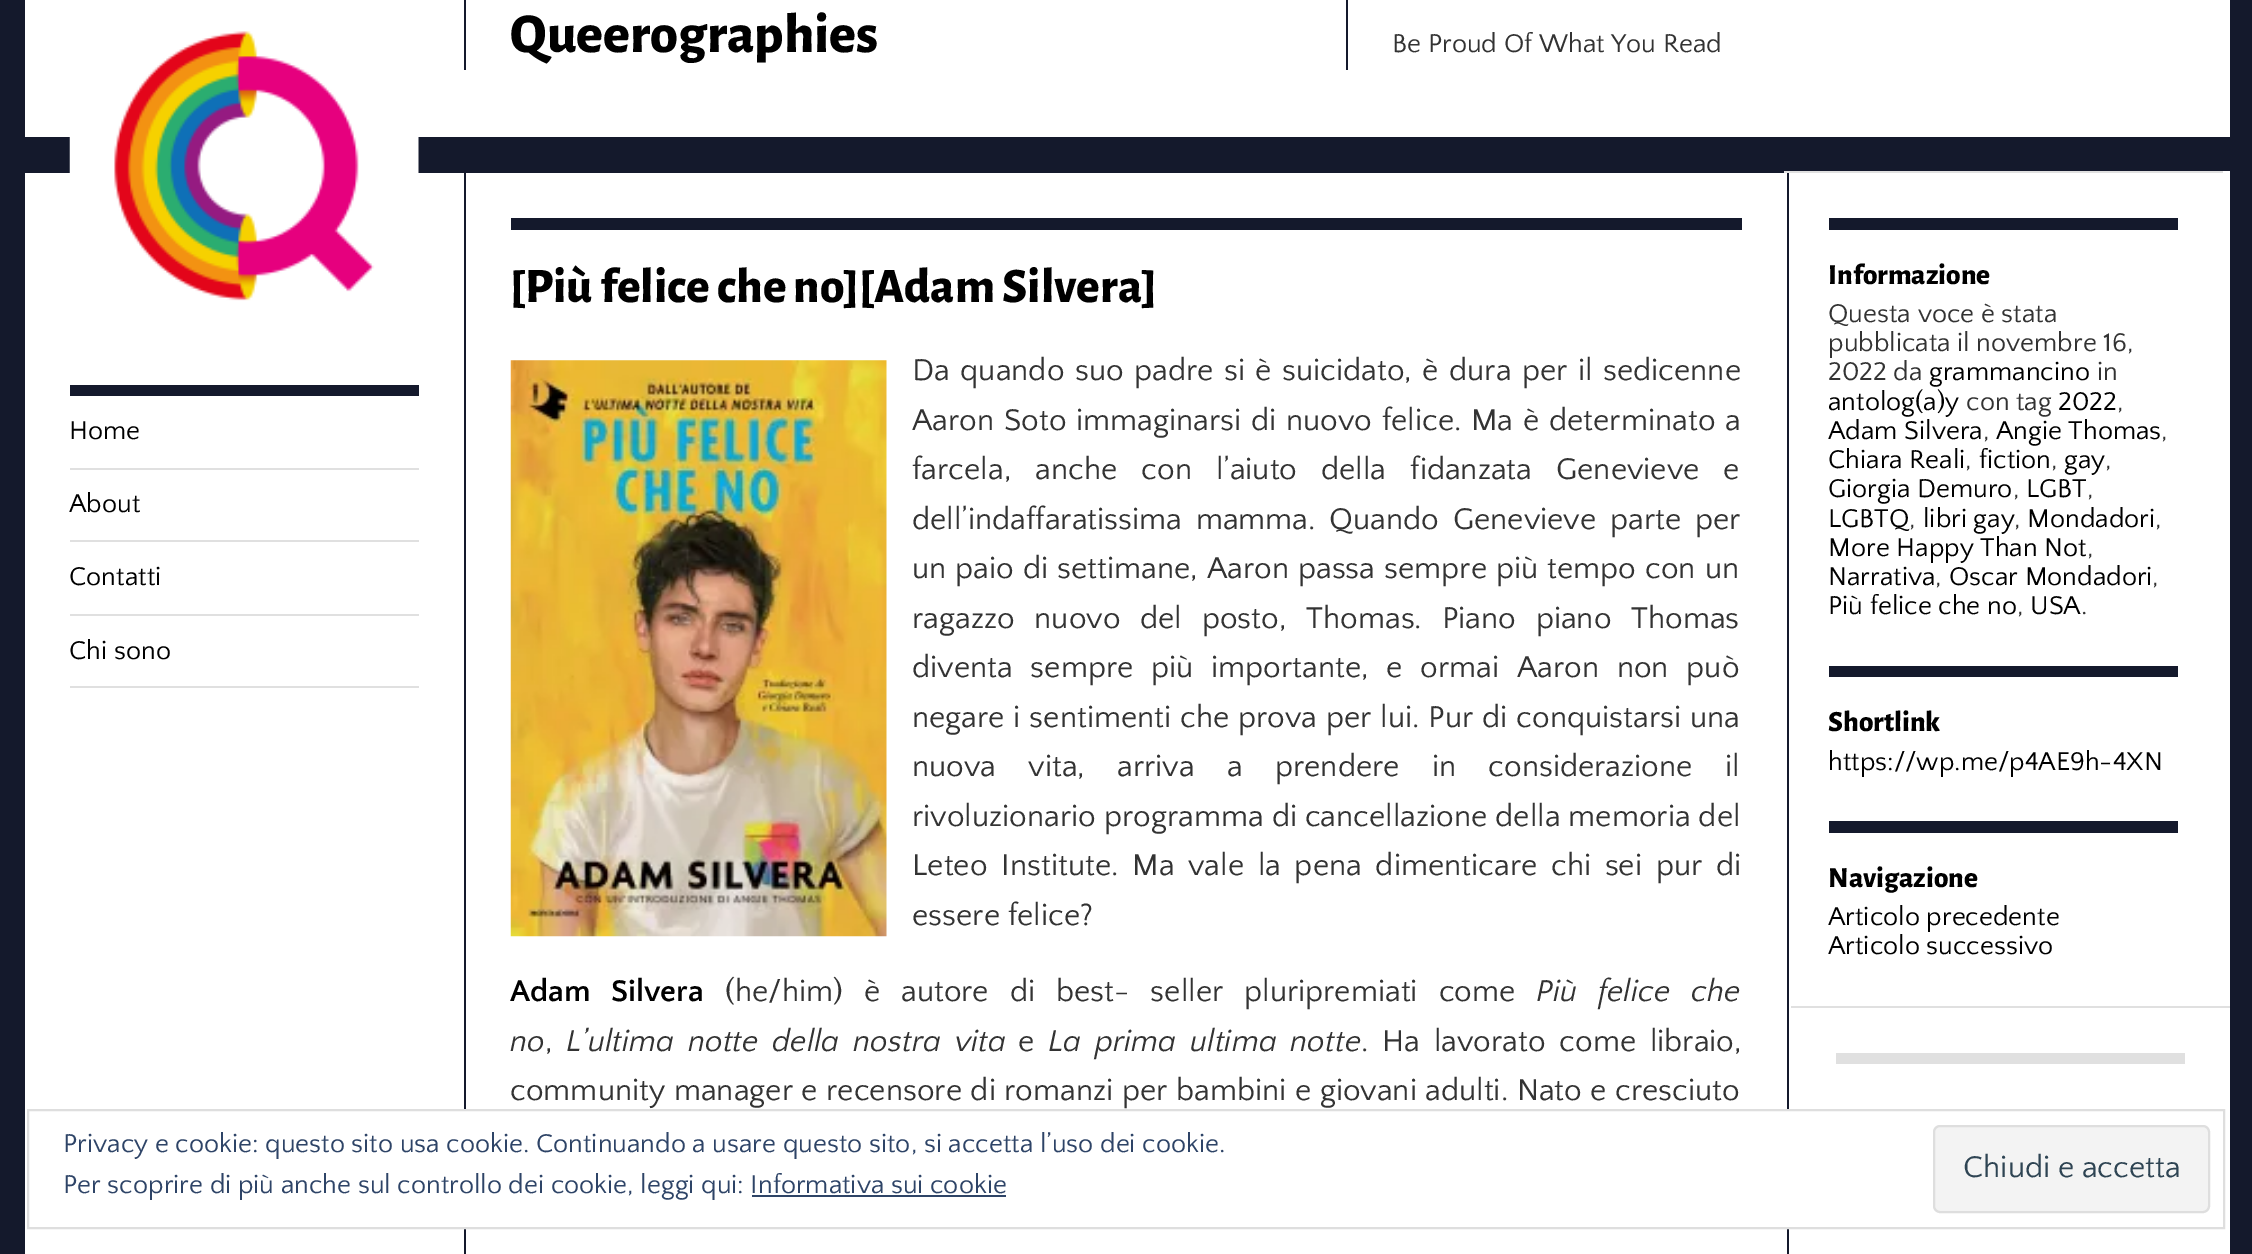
%!PS
<< /PageSize [2252 1254] >> setpagedevice
/roundrect { 5 dict begin { /r /h /w /y /x } { exch def } forall
  x r add y moveto x w add y 2 copy h add r arct x w add y h add x 1 index r arct
  x y h add x y r arct x y 2 copy exch w add exch r arct closepath end } def
/picture { 5 dict begin { /h /w /y /x /name } { exch def } forall
  gsave x y translate w h scale
  w h 8 [w 0 0 h 0 0] name (r) file false 3 colorimage grestore end } def
0 1254 translate 1 -1 scale
4 setmiterlimit
0.078 0.098 0.173 setrgbcolor
0 0 2252 1254 rectfill
1 setgray
25 0 2205 137 rectfill
25 171 2205 1083 rectfill
0.078 0.098 0.173 setrgbcolor
25 171 1764 2 rectfill
(img1.rgb) 69 31 350 270 picture
464 0 2 70 rectfill
/AlegreyaSans-ExtraBold [56.25 0 0 -56.25 0 0] selectfont
0 setgray
510 52 moveto (Queerographies) show
0.078 0.098 0.173 setrgbcolor
1346 0 2 70 rectfill
/QuattrocentoSans-Regular [27 0 0 -27 0 0] selectfont
0.2 setgray
1392 52 moveto (Be Proud Of What You Read) show
0.078 0.098 0.173 setrgbcolor
70 385 349 11 rectfill
0.878 setgray
70 468 349 2 rectfill
0 setgray
69 439 moveto (Home) show
0.878 setgray
70 540 349 2 rectfill
0 setgray
69 512 moveto (About) show
0.878 setgray
70 614 349 2 rectfill
0 setgray
69 585 moveto (Contatti) show
0.878 setgray
70 686 349 2 rectfill
0 setgray
69 659 moveto (Chi sono) show
0.078 0.098 0.173 setrgbcolor
1787 171 2 1083 rectfill
464 171 2 1083 rectfill
511 218 1231 12 rectfill
/AlegreyaSans-ExtraBold [49.5 0 0 -49.5 0 0] selectfont
0 setgray
510 302 moveto ([Più felice che no][Adam Silvera]) show
(img2.rgb) 510 360 377 577 picture
/QuattrocentoSans-Regular [31.5 0 0 -31.5 0 0] selectfont
0.2 setgray
912 380 moveto 2.75 0 32 (Da quando suo padre si è suicidato, è dura per il sedicenne) widthshow
912 430 moveto 2 0 32 (Aaron Soto immaginarsi di nuovo felice. Ma è determinato a) widthshow
912 479 moveto 16.25 0 32 (farcela, anche con l’aiuto della fidanzata Genevieve e) widthshow
912 529 moveto 6 0 32 (dell’indaffaratissima mamma. Quando Genevieve parte per) widthshow
912 578 moveto 1.25 0 32 (un paio di settimane, Aaron passa sempre più tempo con un) widthshow
912 628 moveto 12 0 32 (ragazzo nuovo del posto, Thomas. Piano piano Thomas) widthshow
912 677 moveto 10 0 32 (diventa sempre più importante, e ormai Aaron non può) widthshow
912 727 moveto 1.1 0 32 (negare i sentimenti che prova per lui. Pur di conquistarsi una) widthshow
912 776 moveto 24.5 0 32 (nuova vita, arriva a prendere in considerazione il) widthshow
912 826 moveto 0.25 0 32 (rivoluzionario programma di cancellazione della memoria del) widthshow
912 875 moveto 6 0 32 (Leteo Institute. Ma vale la pena dimenticare chi sei pur di) widthshow
912 925 moveto (essere felice?) show
/QuattrocentoSans-Bold [31.5 0 0 -31.5 0 0] selectfont
0 setgray
510 1001 moveto 13.25 0 32 (Adam Silvera) widthshow
/QuattrocentoSans-Regular [31.5 0 0 -31.5 0 0] selectfont
0.2 setgray
725 1001 moveto 13.25 0 32 (\(he/him\) è autore di best- seller pluripremiati come) widthshow
/QuattrocentoSans-Italic [31.5 0 0 -31.5 0 0] selectfont
1536 1001 moveto 13.25 0 32 (Più felice che) widthshow
510 1051 moveto (no) show
/QuattrocentoSans-Regular [31.5 0 0 -31.5 0 0] selectfont
545 1051 moveto (,) show
/QuattrocentoSans-Italic [31.5 0 0 -31.5 0 0] selectfont
566 1051 moveto 6 0 32 (L’ultima notte della nostra vita) widthshow
/QuattrocentoSans-Regular [31.5 0 0 -31.5 0 0] selectfont
1018 1051 moveto (e) show
/QuattrocentoSans-Italic [31.5 0 0 -31.5 0 0] selectfont
1048 1051 moveto 6 0 32 (La prima ultima notte) widthshow
/QuattrocentoSans-Regular [31.5 0 0 -31.5 0 0] selectfont
1361 1051 moveto 6 0 32 (. Ha lavorato come libraio,) widthshow
510 1100 moveto 0.8 0 32 (community manager e recensore di romanzi per bambini e giovani adulti. Nato e cresciuto) widthshow
0.878 setgray
1784 171 439 2 rectfill
0.078 0.098 0.173 setrgbcolor
1829 218 349 12 rectfill
/AlegreyaSans-ExtraBold [29.25 0 0 -29.25 0 0] selectfont
0 setgray
1828 284 moveto (Informazione) show
/QuattrocentoSans-Regular [27 0 0 -27 0 0] selectfont
0.2 setgray
1828 322 moveto (Questa voce è stata) show
1828 351 moveto (pubblicata il novembre 16,) show
1828 380 moveto (2022 da) show
0 setgray
1929 380 moveto (grammancino) show
0.2 setgray
2097 380 moveto (in) show
0 setgray
1828 410 moveto (antolog\(a\)y) show
0.2 setgray
1966 410 moveto (con tag) show
0 setgray
2058 410 moveto (2022) show
0.2 setgray
2117 410 moveto (,) show
0 setgray
1828 439 moveto (Adam Silvera) show
0.2 setgray
1983 439 moveto (,) show
0 setgray
1996 439 moveto (Angie Thomas) show
0.2 setgray
2161 439 moveto (,) show
0 setgray
1828 468 moveto (Chiara Reali) show
0.2 setgray
1965 468 moveto (,) show
0 setgray
1979 468 moveto (fiction) show
0.2 setgray
2051 468 moveto (,) show
0 setgray
2064 468 moveto (gay) show
0.2 setgray
2105 468 moveto (,) show
0 setgray
1828 497 moveto (Giorgia Demuro) show
0.2 setgray
2013 497 moveto (,) show
0 setgray
2026 497 moveto (LGBT) show
0.2 setgray
2087 497 moveto (,) show
0 setgray
1828 527 moveto (LGBTQ) show
0.2 setgray
1909 527 moveto (,) show
0 setgray
1923 527 moveto (libri gay) show
0.2 setgray
2014 527 moveto (,) show
0 setgray
2027 527 moveto (Mondadori) show
0.2 setgray
2155 527 moveto (,) show
0 setgray
1828 556 moveto (More Happy Than Not) show
0.2 setgray
2087 556 moveto (,) show
0 setgray
1828 585 moveto (Narrativa) show
0.2 setgray
1935 585 moveto (,) show
0 setgray
1949 585 moveto (Oscar Mondadori) show
0.2 setgray
2152 585 moveto (,) show
0 setgray
1828 614 moveto (Più felice che no) show
0.2 setgray
2017 614 moveto (,) show
0 setgray
2030 614 moveto (USA) show
0.2 setgray
2081 614 moveto (.) show
0.078 0.098 0.173 setrgbcolor
1829 666 349 11 rectfill
/AlegreyaSans-ExtraBold [29.25 0 0 -29.25 0 0] selectfont
0 setgray
1828 731 moveto (Shortlink) show
/QuattrocentoSans-Regular [27 0 0 -27 0 0] selectfont
1828 770 moveto (https://wp.me/p4AE9h-4XN) show
0.078 0.098 0.173 setrgbcolor
1829 821 349 12 rectfill
/AlegreyaSans-ExtraBold [29.25 0 0 -29.25 0 0] selectfont
0 setgray
1828 887 moveto (Navigazione) show
/QuattrocentoSans-Regular [27 0 0 -27 0 0] selectfont
1828 925 moveto (Articolo precedente) show
1828 954 moveto (Articolo successivo) show
0.878 setgray
1791 1006 439 2 rectfill
1836 1053 349 11 rectfill
1 setgray
464 1111 1325 116 rectfill
0.871 setgray
2 setlinewidth
28 1110 2196 118 rectstroke
0.18 0.267 0.404 setrgbcolor
63 1152 moveto (Privacy e cookie: questo sito usa cookie. Continuando a usare questo sito, si accetta l’uso dei cookie.) show
0.953 setgray
1934 1126 275 86 6 roundrect gsave fill grestore
0.871 setgray
stroke
/QuattrocentoSans-Regular [31.5 0 0 -31.5 0 0] selectfont
0.18 0.267 0.325 setrgbcolor
1963 1177 moveto (Chiudi e accetta) show
/QuattrocentoSans-Regular [27 0 0 -27 0 0] selectfont
0.18 0.267 0.404 setrgbcolor
63 1193 moveto (Per scoprire di più anche sul controllo dei cookie, leggi qui: Informativa sui cookie) show
752 1195 254 2 rectfill
showpage
